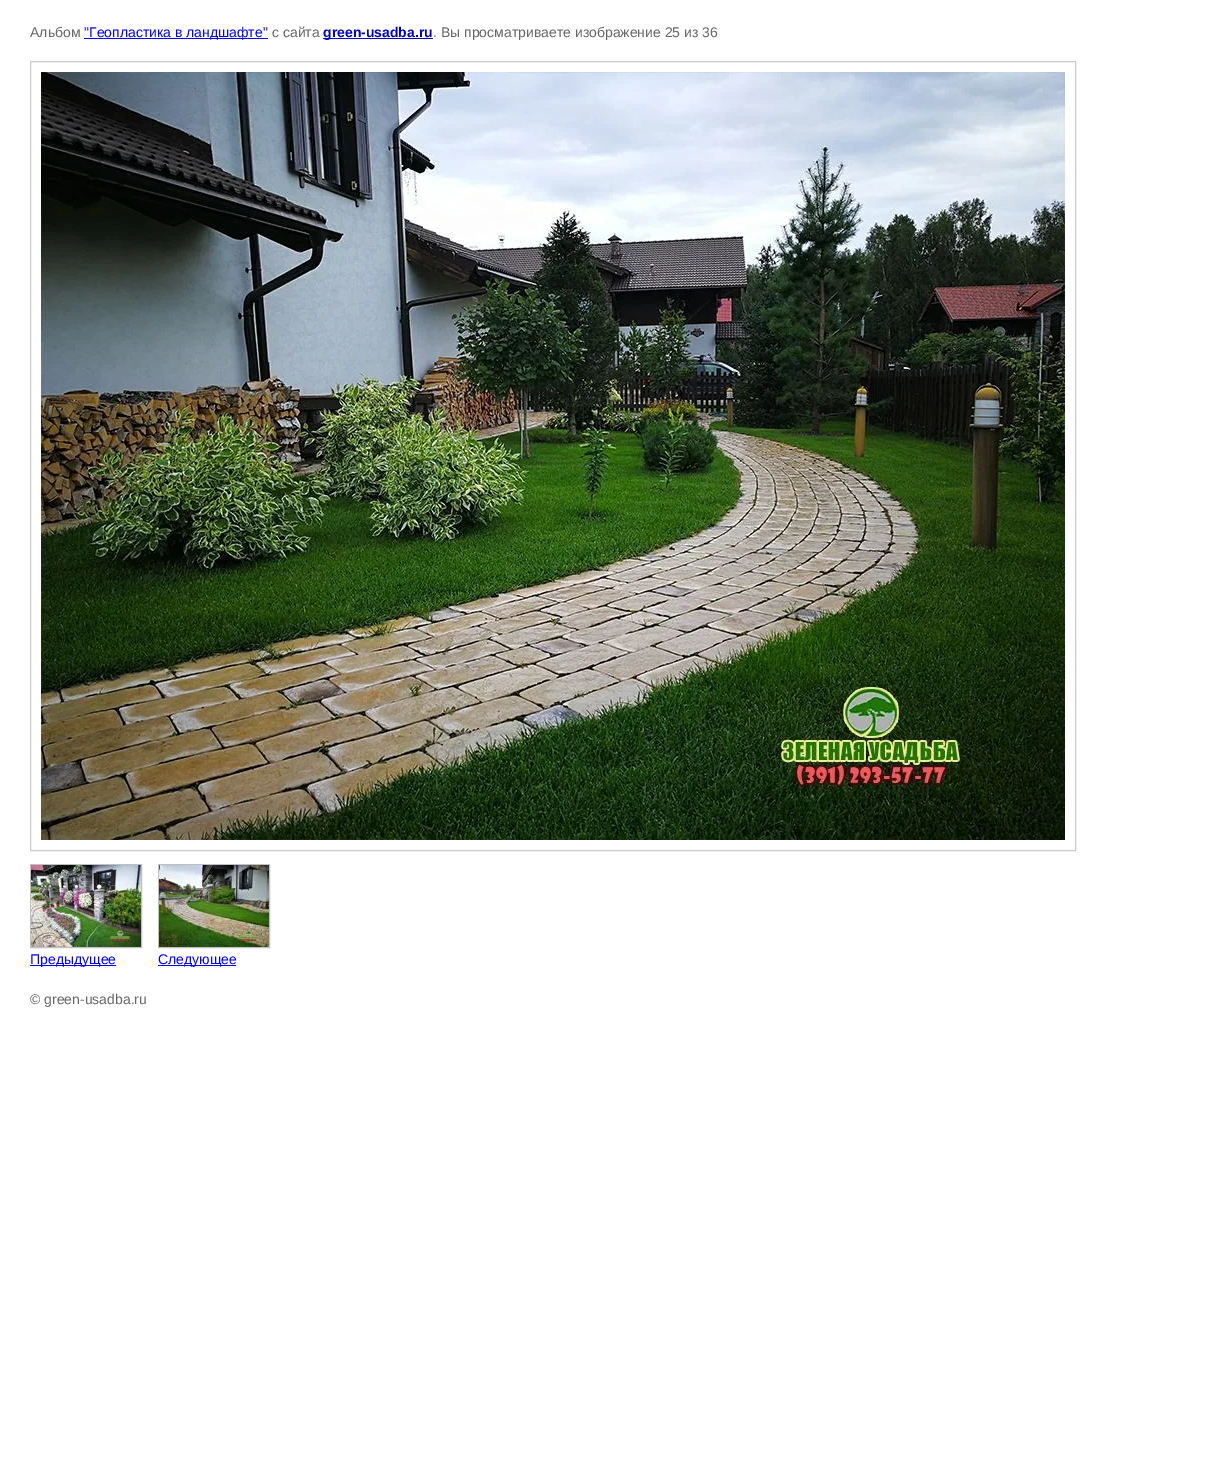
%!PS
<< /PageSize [1218 1475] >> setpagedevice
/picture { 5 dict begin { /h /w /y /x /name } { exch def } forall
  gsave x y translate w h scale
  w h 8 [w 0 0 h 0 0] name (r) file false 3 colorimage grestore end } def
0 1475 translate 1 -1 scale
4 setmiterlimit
1 setgray
0 0 1218 1475 rectfill
/LiberationSans-Regular [14 0 0 -14 0 0] selectfont
0.4 setgray
30 37 moveto (Альбом) show
0 0 1 setrgbcolor
84 38 184 1 rectfill
84 37 moveto ("Геопластика в ландшафте") show
0.4 setgray
272 37 moveto (с сайта) show
0 0 0.8 setrgbcolor
323 38 110 1 rectfill
/LiberationSans-Bold [14 0 0 -14 0 0] selectfont
323 37 moveto (green-usadba.ru) show
/LiberationSans-Regular [14 0 0 -14 0 0] selectfont
0.4 setgray
433 37 moveto (. Вы просматриваете изображение 25 из 36) show
0.8 setgray
30.5 61.5 1045 789 rectstroke
(img1.rgb) 41 72 1024 768 picture
0.753 setgray
30.5 864.5 111 83 rectstroke
(img2.rgb) 31 865 110 82 picture
0 0 1 setrgbcolor
30 965 86 1 rectfill
30 964 moveto (Предыдущее) show
0.753 setgray
158.5 864.5 111 83 rectstroke
(img3.rgb) 159 865 110 82 picture
0 0 1 setrgbcolor
158 965 78 1 rectfill
158 964 moveto (Следующее) show
0.4 setgray
30 1004 moveto (© green-usadba.ru) show
showpage
